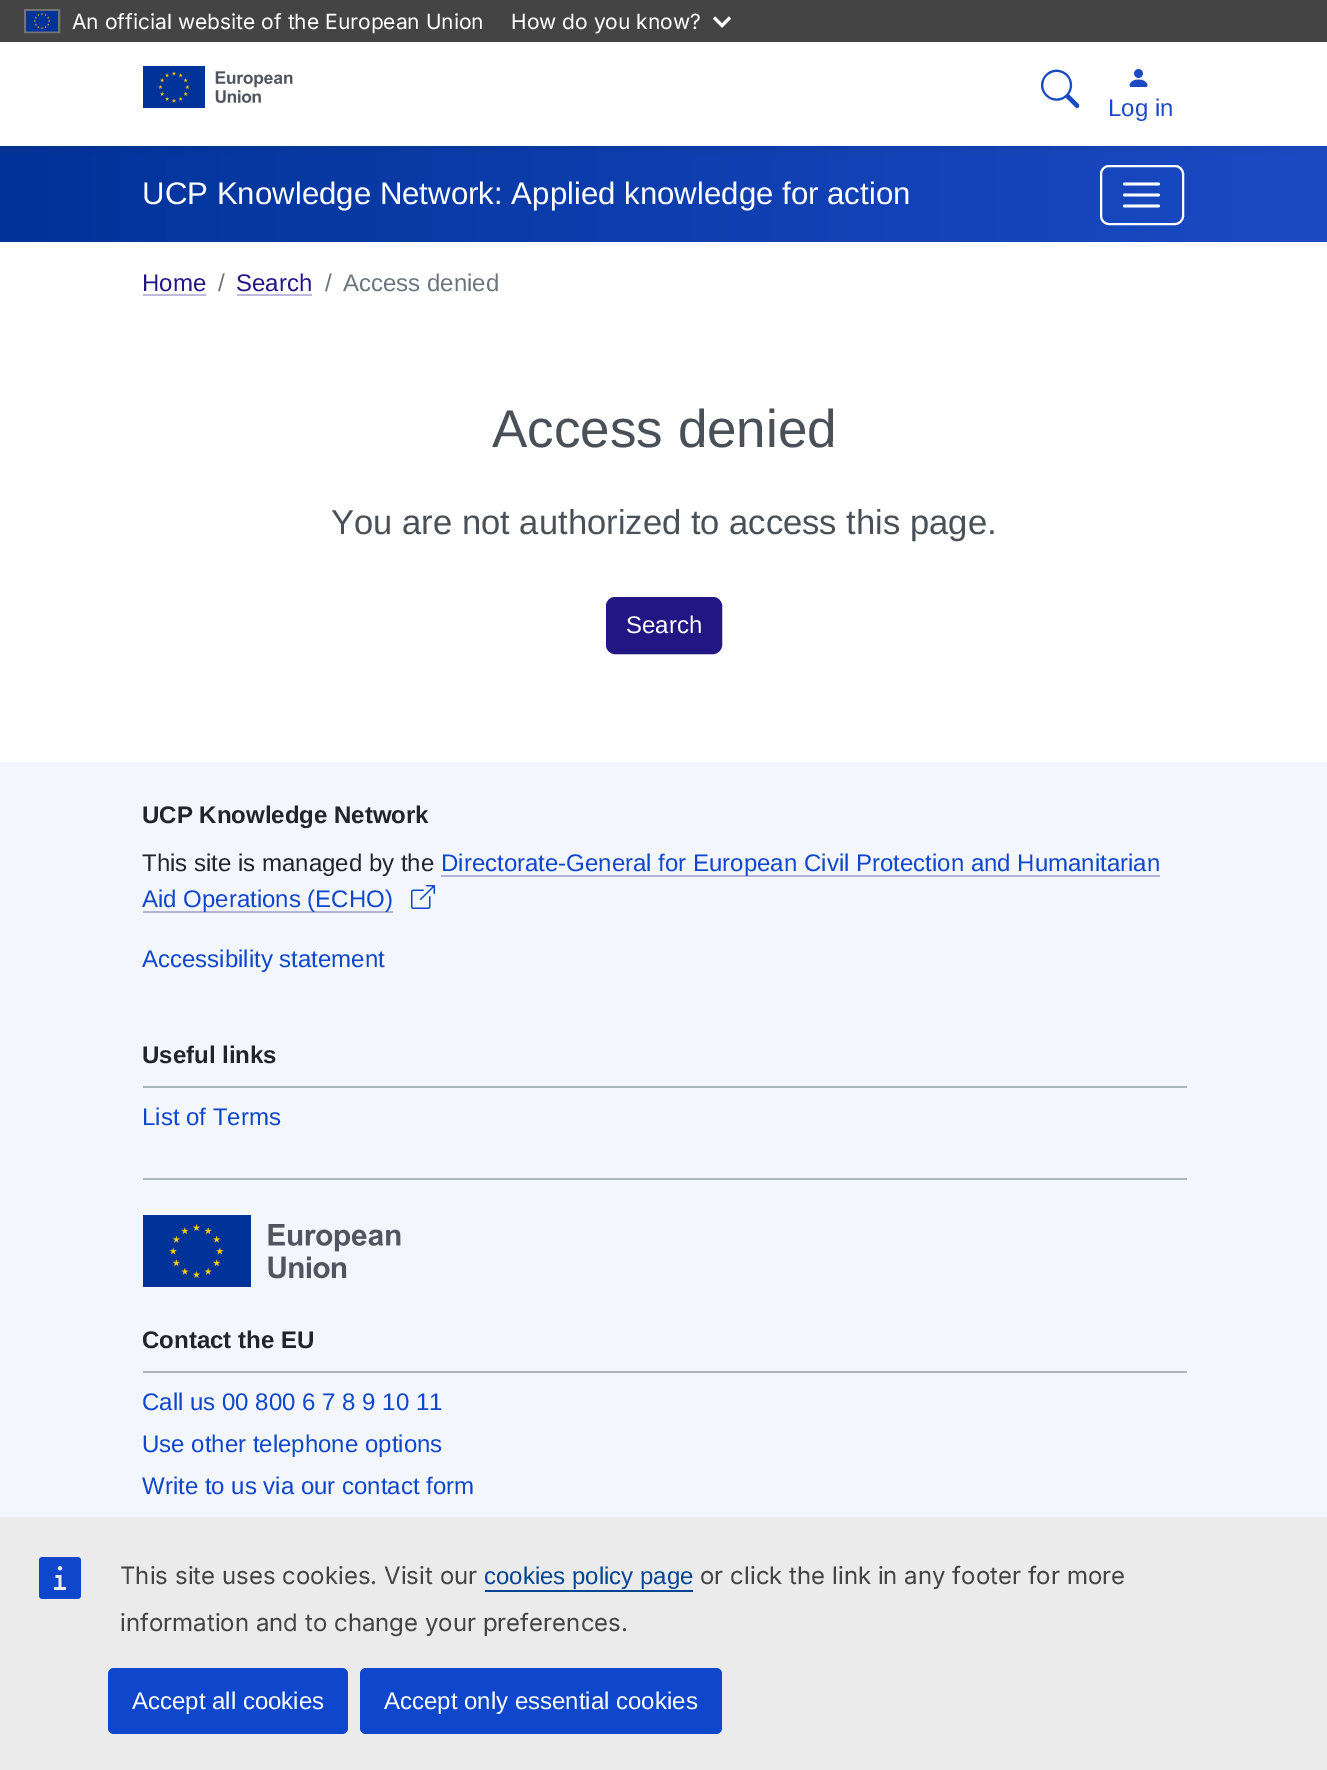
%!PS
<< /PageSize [1327 1770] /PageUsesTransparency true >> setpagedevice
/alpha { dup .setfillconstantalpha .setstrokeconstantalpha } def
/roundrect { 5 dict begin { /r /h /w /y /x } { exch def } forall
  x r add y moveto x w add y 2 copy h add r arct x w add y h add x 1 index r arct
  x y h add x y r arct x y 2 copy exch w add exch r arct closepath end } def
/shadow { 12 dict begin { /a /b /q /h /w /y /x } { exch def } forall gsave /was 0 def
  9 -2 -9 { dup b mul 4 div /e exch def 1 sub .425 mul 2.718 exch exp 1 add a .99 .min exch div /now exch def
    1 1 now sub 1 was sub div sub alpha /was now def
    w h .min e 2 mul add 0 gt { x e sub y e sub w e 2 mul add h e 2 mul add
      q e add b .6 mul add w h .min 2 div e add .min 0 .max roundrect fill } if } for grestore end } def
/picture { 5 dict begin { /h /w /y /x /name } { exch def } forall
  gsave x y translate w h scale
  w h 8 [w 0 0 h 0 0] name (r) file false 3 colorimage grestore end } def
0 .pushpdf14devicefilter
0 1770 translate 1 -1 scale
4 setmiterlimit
1 setgray
0 0 1327 1770 rectfill
gsave newpath 0 146 moveto 1327 146 lineto 1327 218 lineto 0 218 lineto closepath clip newpath
<< /ShadingType 2 /ColorSpace /DeviceRGB /Coords [0 182 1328 181] /Extend [true true] /Function << /FunctionType 2 /Domain [0 1] /C0 [0 0.2 0.6] /C1 [0.106 0.29 0.765] /N 1 >> >> shfill grestore
gsave
newpath 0 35 moveto 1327 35 lineto 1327 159 lineto 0 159 lineto closepath 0 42 moveto 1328 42 lineto 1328 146 lineto 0 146 lineto closepath eoclip newpath
0 setgray
0 45 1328 104 0 3 0.07 shadow
grestore
0.267 setgray
0 0 1327 42 rectfill
0.451 setgray
2 setlinewidth
25 10 34 22 rectstroke
(img1.rgb) 26 11 32 21 picture
/Inter-Regular [21 0 0 -21 0 0] selectfont
1 setgray
72 29 moveto (An official website of the European Union) show
511 29 moveto (How do you know?) show
(img2.rgb) 713 16 18 12 picture
(img3.rgb) 143 66 150 42 picture
(img4.rgb) 1041 69 39 40 picture
(img5.rgb) 1129 69 19 18 picture
/LiberationSans-Regular [24 0 0 -24 0 0] selectfont
0.106 0.29 0.765 setrgbcolor
1108 116 moveto (Log in) show
gsave newpath 0 218 moveto 1327 218 lineto 1327 242 lineto 0 242 lineto closepath clip newpath
<< /ShadingType 2 /ColorSpace /DeviceRGB /Coords [0 230 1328 229] /Extend [true true] /Function << /FunctionType 2 /Domain [0 1] /C0 [0 0.2 0.6] /C1 [0.106 0.29 0.765] /N 1 >> >> shfill grestore
1 setgray
1101 166 82 58 8 roundrect stroke
2.8 setlinewidth
1 setlinecap
newpath 1124.5 184 moveto 1158.5 184 lineto 1124.5 195 moveto 1158.5 195 lineto 1124.5 206 moveto 1158.5 206 lineto stroke
/LiberationSans-Regular [31.2 0 0 -31.2 0 0] selectfont
142 204 moveto (UCP Knowledge Network: Applied knowledge for action) show
/LiberationSans-Regular [24 0 0 -24 0 0] selectfont
0.133 0.086 0.518 setrgbcolor
142 291 moveto (Home) show
0.741 0.725 0.855 setrgbcolor
143 294 63 2 rectfill
0.424 0.459 0.49 setrgbcolor
218 291 moveto (/) show
0.133 0.086 0.518 setrgbcolor
236 291 moveto (Search) show
0.741 0.725 0.855 setrgbcolor
237 294 75 2 rectfill
0.424 0.459 0.49 setrgbcolor
325 291 moveto (/) show
343 291 moveto (Access denied) show
/LiberationSans-Regular [53 0 0 -53 0 0] selectfont
0.286 0.314 0.341 setrgbcolor
492 447 moveto (Access denied) show
/LiberationSans-Regular [34.6 0 0 -34.6 0 0] selectfont
331 534 moveto (You are not authorized to access this page.) show
0.133 0.086 0.518 setrgbcolor
607 598 114 55 8 roundrect gsave fill grestore
2 setlinewidth
0 setlinecap
stroke
/LiberationSans-Regular [24 0 0 -24 0 0] selectfont
1 setgray
626 633 moveto (Search) show
0.953 0.965 0.988 setrgbcolor
0 762 1327 755 rectfill
/LiberationSans-Bold [24 0 0 -24 0 0] selectfont
0.129 0.145 0.161 setrgbcolor
142 823 moveto (UCP Knowledge Network) show
/LiberationSans-Regular [24 0 0 -24 0 0] selectfont
142 871 moveto (This site is managed by the) show
0.706 0.702 0.847 setrgbcolor
441 875 719 2 rectfill
0.055 0.278 0.796 setrgbcolor
441 871 moveto (Directorate-General for European Civil Protection and Humanitarian) show
0.706 0.702 0.847 setrgbcolor
143 911 250 2 rectfill
0.055 0.278 0.796 setrgbcolor
142 907 moveto (Aid Operations \(ECHO\)) show
(img6.rgb) 411 885 24 24 picture
142 967 moveto (Accessibility statement) show
0.678 0.71 0.741 setrgbcolor
143 1086 1044 2 rectfill
/LiberationSans-Bold [24 0 0 -24 0 0] selectfont
0.129 0.145 0.161 setrgbcolor
142 1063 moveto (Useful links) show
/LiberationSans-Regular [24 0 0 -24 0 0] selectfont
0.055 0.278 0.796 setrgbcolor
142 1125 moveto (List of Terms) show
0.678 0.71 0.741 setrgbcolor
143 1178 1044 2 rectfill
(img7.rgb) 143 1215 258 72 picture
143 1371 1044 2 rectfill
/LiberationSans-Bold [24 0 0 -24 0 0] selectfont
0.129 0.145 0.161 setrgbcolor
142 1348 moveto (Contact the EU) show
/LiberationSans-Regular [24 0 0 -24 0 0] selectfont
0.055 0.278 0.796 setrgbcolor
142 1410 moveto (Call us 00 800 6 7 8 9 10 11) show
142 1452 moveto (Use other telephone options) show
142 1494 moveto (Write to us via our contact form) show
0.922 setgray
0 1517 1327 253 rectfill
(img8.rgb) 39 1557 42 42 picture
/Inter-Regular [24 0 0 -24 0 0] selectfont
0.267 setgray
120 1584 moveto (This site uses cookies. Visit our) show
/LiberationSans-Regular [24 0 0 -24 0 0] selectfont
0 0.267 0.58 setrgbcolor
484 1584 moveto (cookies policy page) show
485 1590 208 2 rectfill
/Inter-Regular [24 0 0 -24 0 0] selectfont
0.267 setgray
700 1584 moveto (or click the link in any footer for more) show
120 1631 moveto (information and to change your preferences.) show
0.055 0.278 0.796 setrgbcolor
108 1668 240 66 6 roundrect fill
/LiberationSans-Regular [24 0 0 -24 0 0] selectfont
1 setgray
132 1709 moveto (Accept all cookies) show
0.055 0.278 0.796 setrgbcolor
360 1668 362 66 6 roundrect fill
1 setgray
384 1709 moveto (Accept only essential cookies) show
.poppdf14devicefilter showpage
